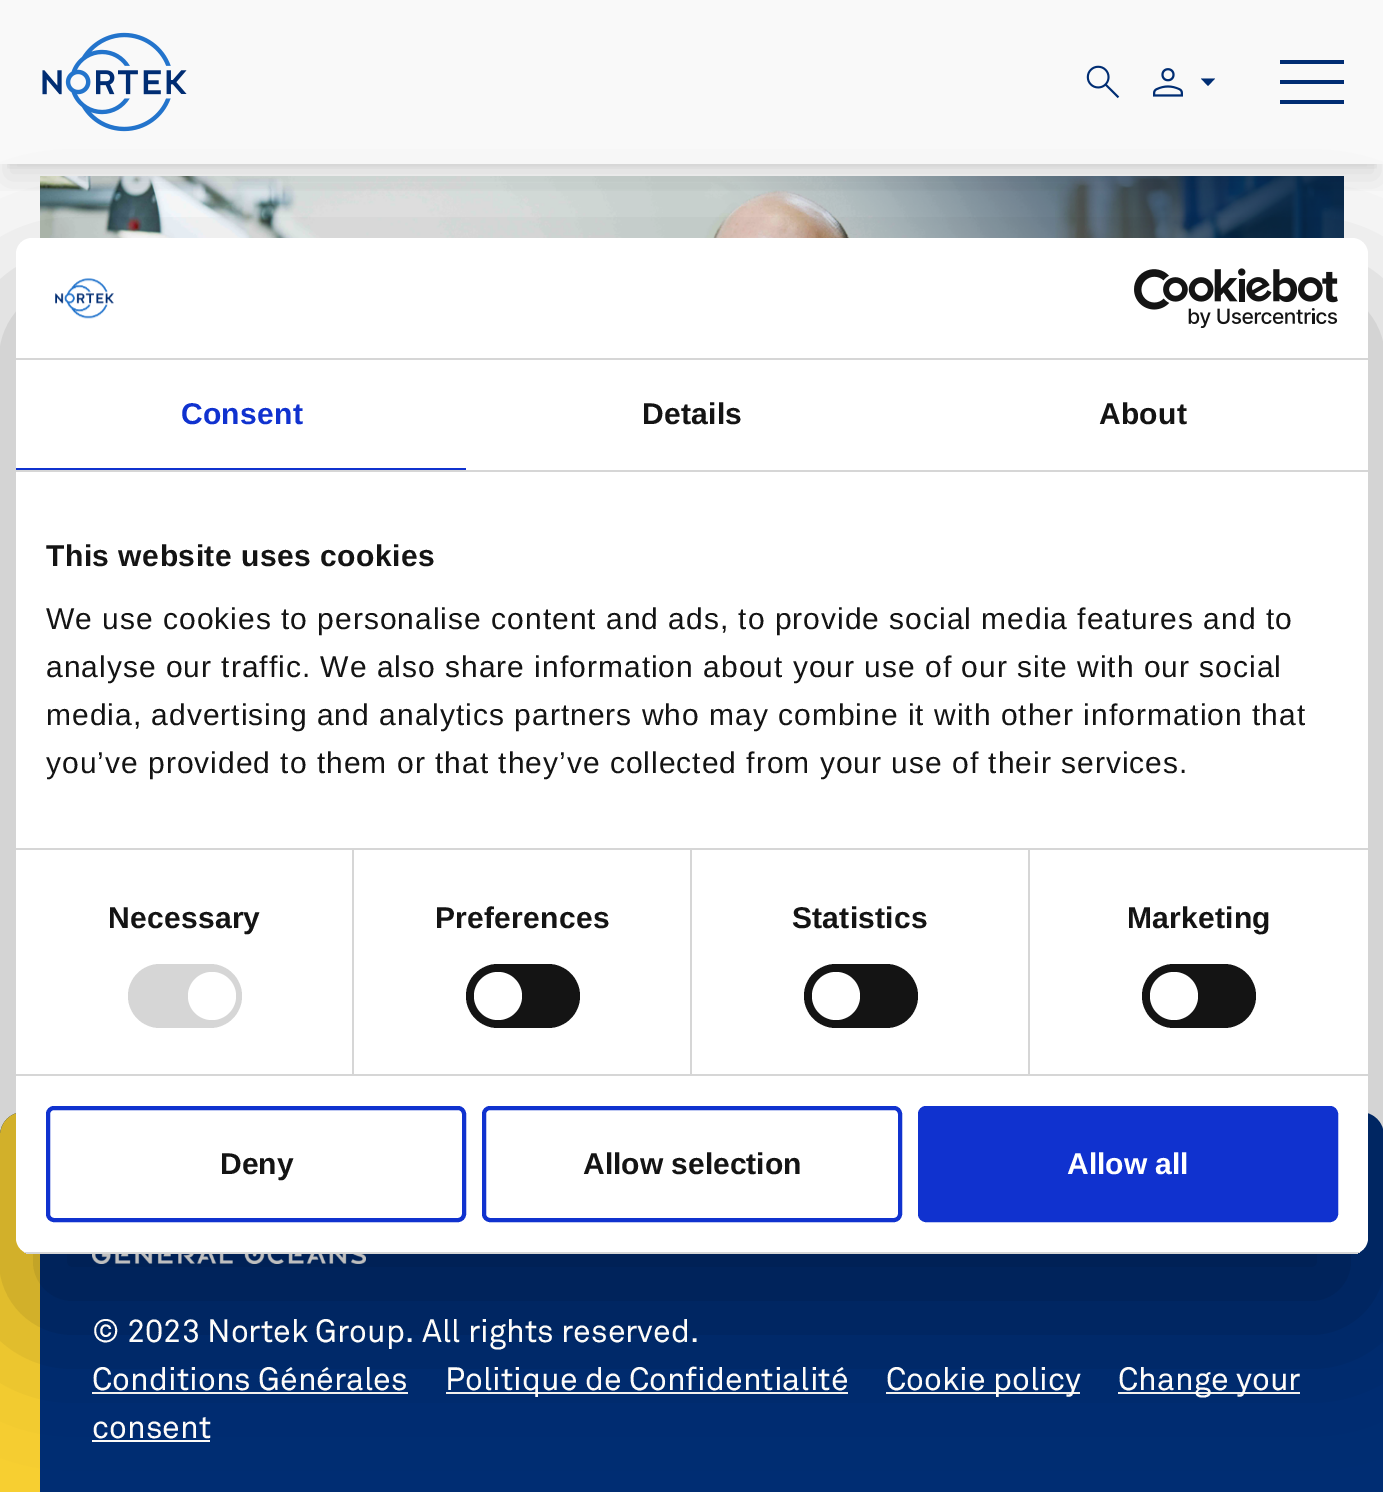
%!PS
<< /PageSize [1383 1492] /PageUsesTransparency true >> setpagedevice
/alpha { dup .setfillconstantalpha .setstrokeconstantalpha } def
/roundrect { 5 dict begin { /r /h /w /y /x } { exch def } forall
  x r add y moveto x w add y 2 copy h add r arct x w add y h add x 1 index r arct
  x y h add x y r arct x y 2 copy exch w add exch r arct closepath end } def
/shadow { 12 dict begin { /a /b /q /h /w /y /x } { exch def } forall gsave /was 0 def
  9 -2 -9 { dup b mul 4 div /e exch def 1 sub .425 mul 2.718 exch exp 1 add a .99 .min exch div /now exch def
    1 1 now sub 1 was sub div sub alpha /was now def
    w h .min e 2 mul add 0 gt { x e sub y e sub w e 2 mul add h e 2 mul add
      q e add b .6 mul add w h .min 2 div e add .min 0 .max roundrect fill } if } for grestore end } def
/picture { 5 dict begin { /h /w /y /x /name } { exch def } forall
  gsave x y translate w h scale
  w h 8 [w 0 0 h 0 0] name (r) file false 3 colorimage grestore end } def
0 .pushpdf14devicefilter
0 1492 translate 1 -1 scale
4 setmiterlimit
0.976 setgray
0 0 1383 1492 rectfill
(img6.rgb) 40 176 1304 62 picture
gsave
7 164 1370 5 rectclip
0 setgray
8 16 1368 148 0 6 0.1 shadow
grestore
gsave
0 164 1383 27 rectclip
0 setgray
6 26 1372 152 0 15 0.1 shadow
grestore
(img3.rgb) 42 32 145 100 picture
(img4.rgb) 1086 65 34 34 picture
0 0.176 0.451 setrgbcolor
1280 100 64 4 rectfill
newpath 24 1112 moveto 1360 1112 lineto 1373.5 1112 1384 1122.5 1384 1136 curveto 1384 1492 lineto 0 1492 lineto 0 1136 lineto 0 1122.5 10.5 1112 24 1112 curveto closepath fill
0.969 0.812 0.192 setrgbcolor
newpath 24 1112 moveto 40 1112 lineto 40 1492 lineto 0 1492 lineto 0 1136 lineto 0 1122.5 10.5 1112 24 1112 curveto closepath fill
(img7.rgb) 92 1254 274 10 picture
0.996 0.988 0.976 setrgbcolor
92 1392 316 2 rectfill
446 1392 402 2 rectfill
886 1392 194 2 rectfill
1118 1392 182 2 rectfill
92 1440 118 2 rectfill
0 setgray
16 302 1352 1016 16 68 0.3 shadow
1 setgray
16 238 1352 1016 16 roundrect fill
0.839 setgray
16 358 1352 2 rectfill
(img1.rgb) 55 278 59 41 picture
(img2.rgb) 1134 268 204 60 picture
16 470 1352 2 rectfill
0.063 0.196 0.812 setrgbcolor
16 468 450 2 rectfill
/LiberationSans-Bold [30 0 0 -30 0 0] selectfont
181 424 moveto 0.25 0 (Consent) ashow
0.078 setgray
642 424 moveto 0.25 0 (Details) ashow
1099 424 moveto 0.25 0 (About) ashow
0.839 setgray
16 848 1352 2 rectfill
0.078 setgray
46 566 moveto 0.5 0 (This website uses cookies) ashow
/LiberationSans-Regular [30 0 0 -30 0 0] selectfont
46 629 moveto 1 0 (We use cookies to personalise content and ads, to provide social media features and to) ashow
46 677 moveto 1 0 (analyse our traffic. We also share information about your use of our site with our social) ashow
46 725 moveto 1 0 (media, advertising and analytics partners who may combine it with other information that) ashow
46 773 moveto 1 0 (you’ve provided to them or that they’ve collected from your use of their services.) ashow
0.839 setgray
16 1074 1352 2 rectfill
352 850 2 224 rectfill
/LiberationSans-Bold [30 0 0 -30 0 0] selectfont
0.078 setgray
108 928 moveto 0.25 0 (Necessary) ashow
0.839 setgray
128 964 114 64 32 roundrect fill
1 setgray
newpath 212 996 24 0 360 arc closepath fill
0.839 setgray
690 850 2 224 rectfill
0.078 setgray
435 928 moveto 0.25 0 (Preferences) ashow
466 964 114 64 32 roundrect fill
1 setgray
newpath 498 996 24 0 360 arc closepath fill
0.839 setgray
1028 850 2 224 rectfill
0.078 setgray
792 928 moveto 0.25 0 (Statistics) ashow
804 964 114 64 32 roundrect fill
1 setgray
newpath 836 996 24 0 360 arc closepath fill
0.078 setgray
1127 928 moveto 0.25 0 (Marketing) ashow
1142 964 114 64 32 roundrect fill
1 setgray
newpath 1174 996 24 0 360 arc closepath fill
gsave
16 238 1352 1016 16 roundrect clip newpath
0.839 setgray
16 1252 1352 2 rectfill
grestore
0.063 0.196 0.812 setrgbcolor
4 setlinewidth
48 1108 416 112 6 roundrect stroke
0.078 setgray
220 1174 moveto (Deny) show
0.063 0.196 0.812 setrgbcolor
484 1108 416 112 6 roundrect stroke
0.078 setgray
583 1174 moveto (Allow selection) show
0.063 0.196 0.812 setrgbcolor
920 1108 416 112 6 roundrect gsave fill grestore
stroke
1 setgray
1067 1174 moveto (Allow all) show
(img5.rgb) 1153 68 30 29 picture
0 0.176 0.451 setrgbcolor
newpath 1208 86 moveto 1201 78.5 lineto 1215 78.5 lineto closepath fill
1280 60 64 4 rectfill
1280 80 64 4 rectfill
/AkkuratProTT-Regular [32 0 0 -32 0 0] selectfont
0.996 0.988 0.976 setrgbcolor
92 1342 moveto (© 2023 Nortek Group. All rights reserved.) show
92 1390 moveto (Conditions Générales) show
445 1390 moveto (Politique de Confidentialité) show
886 1390 moveto (Cookie policy) show
1118 1390 moveto (Change your) show
92 1438 moveto (consent) show
.poppdf14devicefilter showpage
